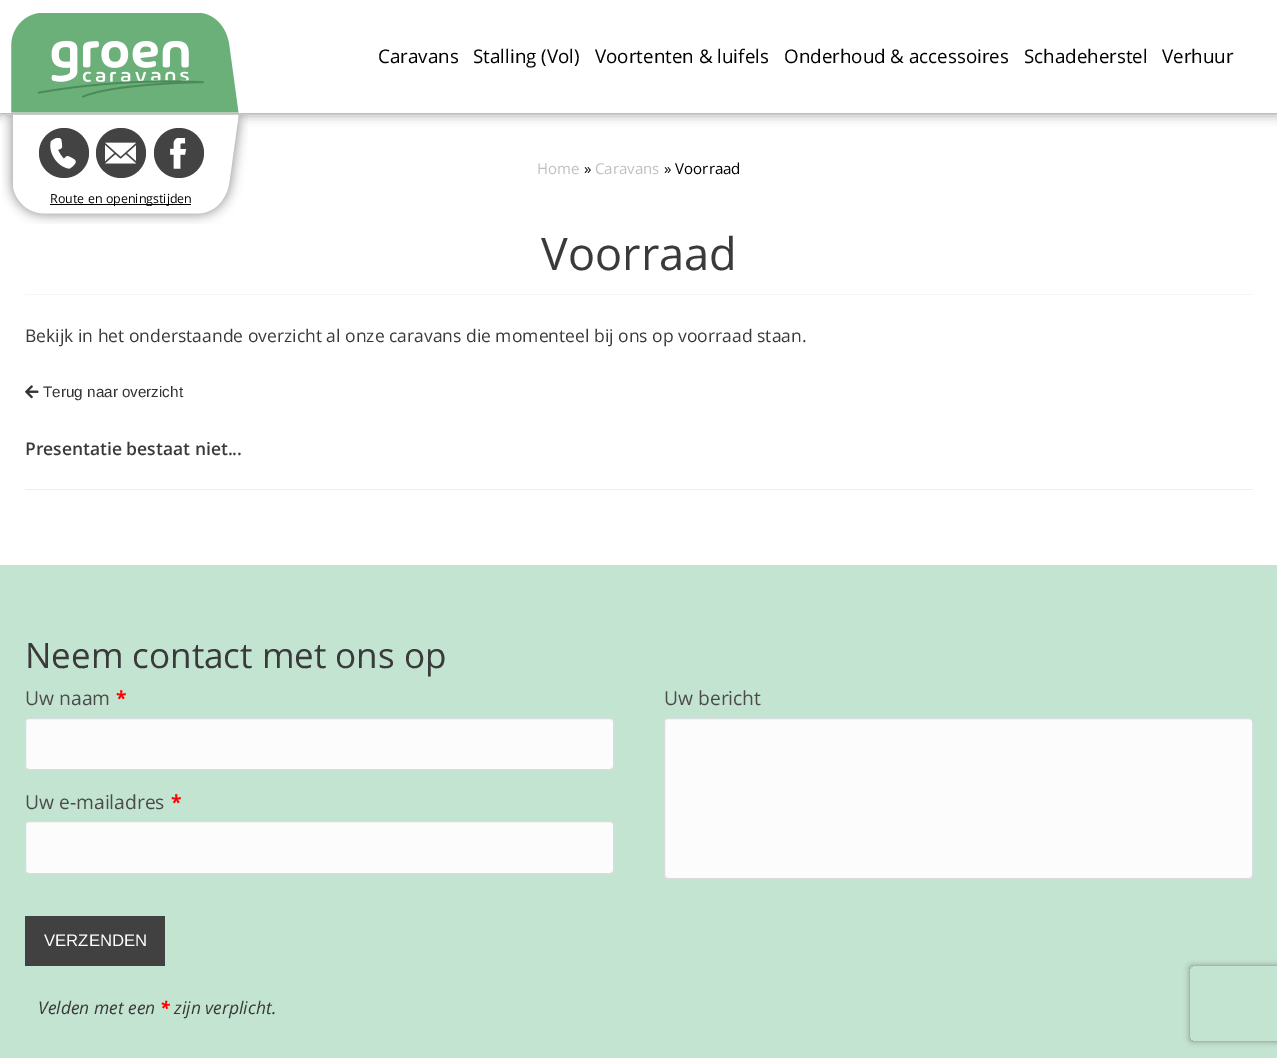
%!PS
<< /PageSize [1277 1058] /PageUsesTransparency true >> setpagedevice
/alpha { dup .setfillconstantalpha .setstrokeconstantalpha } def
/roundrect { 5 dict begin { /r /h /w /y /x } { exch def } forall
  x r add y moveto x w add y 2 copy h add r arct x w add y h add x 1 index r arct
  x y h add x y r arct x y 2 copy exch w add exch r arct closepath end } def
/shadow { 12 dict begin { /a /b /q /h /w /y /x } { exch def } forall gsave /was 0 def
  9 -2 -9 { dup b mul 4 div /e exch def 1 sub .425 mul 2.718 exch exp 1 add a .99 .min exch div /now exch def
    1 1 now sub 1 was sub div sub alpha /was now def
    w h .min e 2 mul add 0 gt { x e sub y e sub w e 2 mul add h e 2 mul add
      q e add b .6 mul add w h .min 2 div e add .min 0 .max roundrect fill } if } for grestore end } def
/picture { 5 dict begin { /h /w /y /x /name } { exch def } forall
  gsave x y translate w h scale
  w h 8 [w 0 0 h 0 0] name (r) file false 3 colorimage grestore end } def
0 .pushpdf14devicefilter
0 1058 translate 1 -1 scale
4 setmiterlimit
1 setgray
0 0 1277 1058 rectfill
gsave
newpath 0 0 moveto 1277 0 lineto 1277 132 lineto 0 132 lineto closepath 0 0 moveto 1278 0 lineto 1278 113 lineto 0 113 lineto closepath eoclip newpath
0 setgray
0 0 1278 113 0 6 0.5 shadow
grestore
(img1.rgb) 11 13 228 100 picture
/OpenSans-Regular [18.75 0 0 -18.75 0 0] selectfont
0 setgray
378 63 moveto (Caravans) show
473 63 moveto (Stalling \(Vol\)) show
595 63 moveto (Voortenten & luifels) show
784 63 moveto (Onderhoud & accessoires) show
1024 63 moveto (Schadeherstel) show
1162 63 moveto (Verhuur) show
(img2.rgb) 2 115 246 109 picture
0.263 setgray
newpath 64 153 25 0 360 arc closepath fill
(img3.rgb) 50 138 26 31 picture
newpath 121 153 25 0 360 arc closepath fill
(img4.rgb) 105 142 31 22 picture
newpath 179 153 25 0 360 arc closepath fill
(img5.rgb) 170 138 17 31 picture
0 setgray
50 204 141 1 rectfill
/OpenSans-Regular [12.5 0 0 -12.5 0 0] selectfont
50 203 moveto (Route en openingstijden) show
/OpenSans-Regular [15 0 0 -15 0 0] selectfont
0.753 setgray
537 174 moveto (Home) show
0 setgray
584 174 moveto (») show
0.753 setgray
595 174 moveto (Caravans) show
0 setgray
664 174 moveto (» Voorraad) show
0.961 setgray
25 294 1228 1 rectfill
/OpenSans-Regular [45 0 0 -45 0 0] selectfont
0.227 setgray
541 270 moveto (Voorraad) show
/OpenSans-Regular [17.5 0 0 -17.5 0 0] selectfont
25 342 moveto (Bekijk in het onderstaande overzicht al onze caravans die momenteel bij ons op voorraad staan.) show
(img6.rgb) 25 385 14 14 picture
/LiberationSans-Regular [15.25 0 0 -15.25 0 0] selectfont
0.2 setgray
43 397 moveto (Terug naar overzicht) show
0.933 setgray
25 489 1228 1 rectfill
/OpenSans-SemiBold [17.5 0 0 -17.5 0 0] selectfont
0.227 setgray
25 455 moveto (Presentatie bestaat niet...) show
0.765 0.894 0.82 setrgbcolor
0 565 1277 493 rectfill
/OpenSans-Regular [35 0 0 -35 0 0] selectfont
0.227 setgray
25 668 moveto (Neem contact met ons op) show
/OpenSans-Regular [19.25 0 0 -19.25 0 0] selectfont
0.294 setgray
25 705 moveto (Uw naam) show
/OpenSans-Bold [19.25 0 0 -19.25 0 0] selectfont
1 0 0 setrgbcolor
116 705 moveto (*) show
0.988 setgray
25.5 718.5 588 51 3.5 roundrect gsave fill grestore
0.843 0.867 0.867 setrgbcolor
stroke
/OpenSans-Regular [19.25 0 0 -19.25 0 0] selectfont
0.294 setgray
25 809 moveto (Uw e-mailadres) show
/OpenSans-Bold [19.25 0 0 -19.25 0 0] selectfont
1 0 0 setrgbcolor
171 809 moveto (*) show
0.988 setgray
25.5 821.5 588 52 3.5 roundrect gsave fill grestore
0.843 0.867 0.867 setrgbcolor
stroke
/OpenSans-Regular [19.25 0 0 -19.25 0 0] selectfont
0.294 setgray
664 705 moveto (Uw bericht) show
0.988 setgray
664.5 718.5 588 160 3.5 roundrect gsave fill grestore
0.843 0.867 0.867 setrgbcolor
stroke
0.255 setgray
25 916 140 50 rectfill
/LiberationSans-Regular [16.75 0 0 -16.75 0 0] selectfont
1 setgray
44 946 moveto (VERZENDEN) show
/OpenSans-Italic [17.5 0 0 -17.5 0 0] selectfont
0.227 setgray
38 1014 moveto (Velden met een) show
/OpenSans-BoldItalic [17.5 0 0 -17.5 0 0] selectfont
1 0 0 setrgbcolor
160 1014 moveto (*) show
/OpenSans-Italic [17.5 0 0 -17.5 0 0] selectfont
0.227 setgray
174 1014 moveto (zijn verplicht.) show
gsave
newpath 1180 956 moveto 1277 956 lineto 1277 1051 lineto 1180 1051 lineto closepath 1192.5 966 moveto 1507.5 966 lineto 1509 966 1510 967 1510 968.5 curveto 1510 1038.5 lineto 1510 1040 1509 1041 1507.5 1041 curveto 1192.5 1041 lineto 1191 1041 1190 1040 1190 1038.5 curveto 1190 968.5 lineto 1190 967 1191 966 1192.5 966 curveto closepath eoclip newpath
0.502 setgray
1190 966 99 75 2.5 3 1 shadow
grestore
.poppdf14devicefilter showpage
